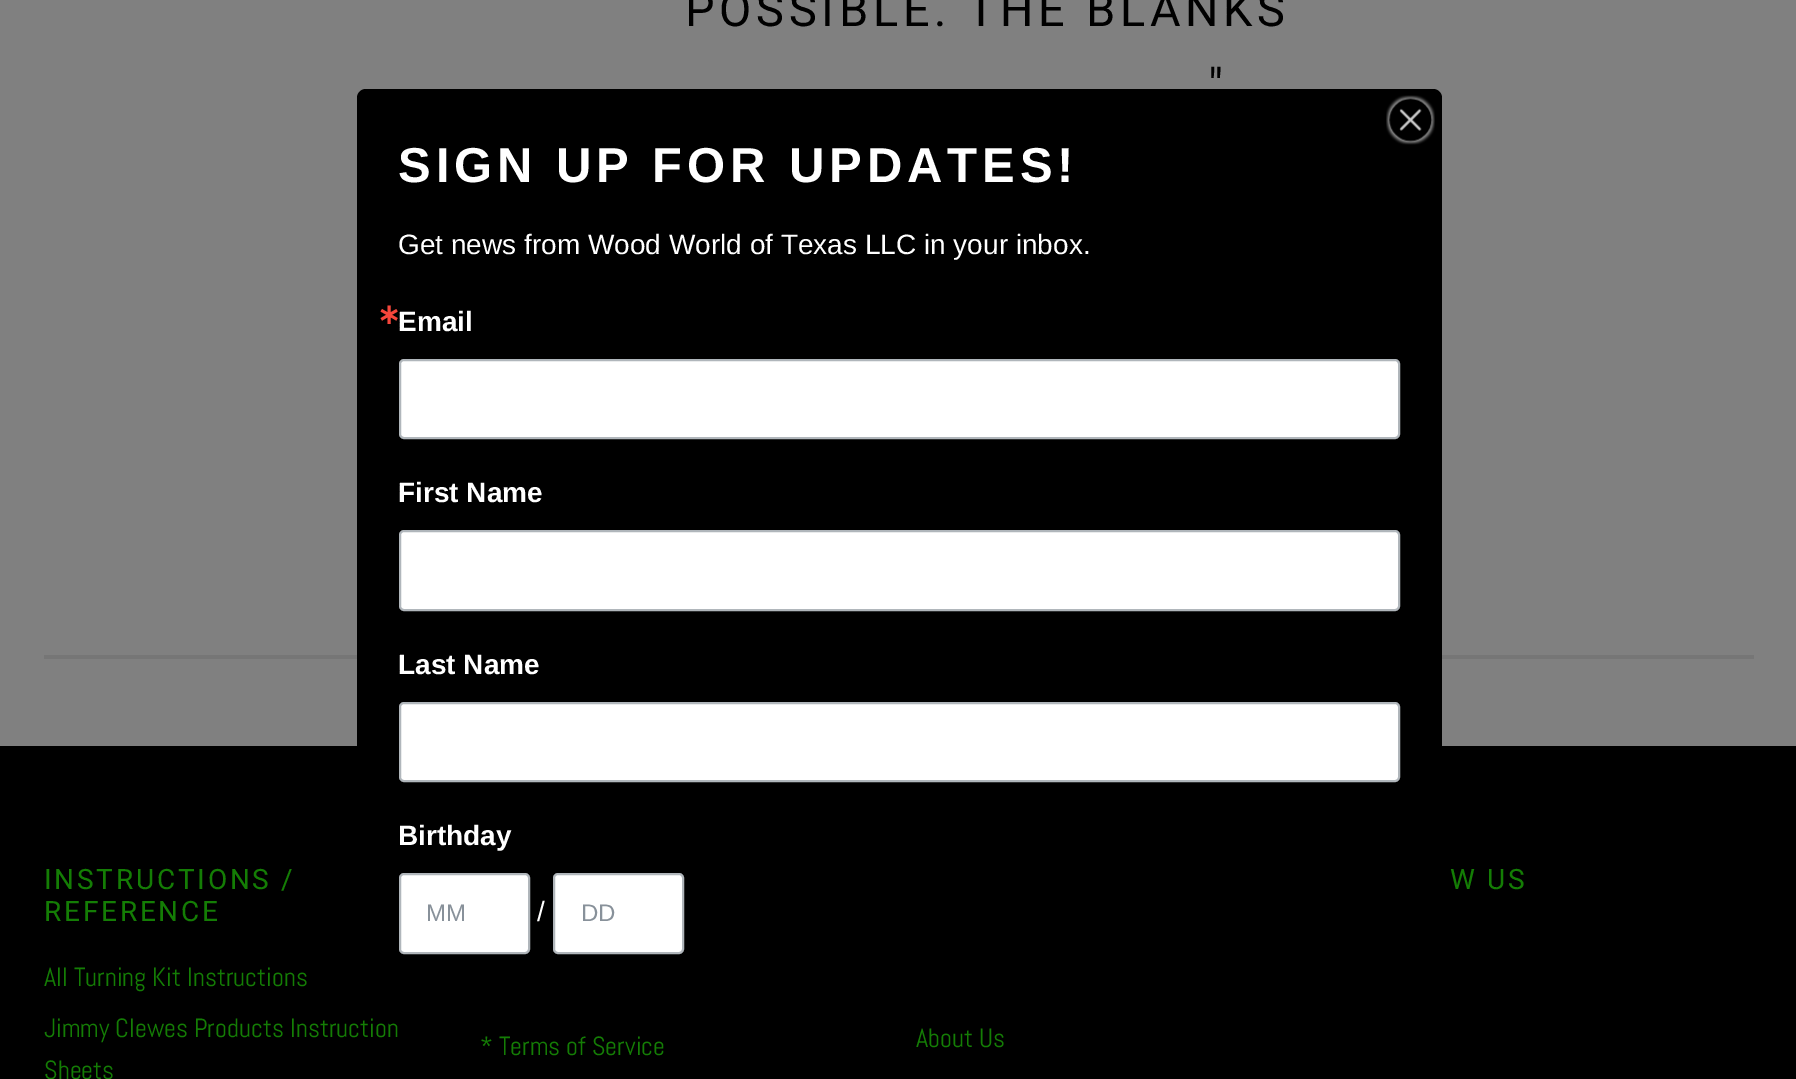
%!PS
<< /PageSize [1796 1079] /PageUsesTransparency true >> setpagedevice
/alpha { dup .setfillconstantalpha .setstrokeconstantalpha } def
/roundrect { 5 dict begin { /r /h /w /y /x } { exch def } forall
  x r add y moveto x w add y 2 copy h add r arct x w add y h add x 1 index r arct
  x y h add x y r arct x y 2 copy exch w add exch r arct closepath end } def
/picture { 5 dict begin { /h /w /y /x /name } { exch def } forall
  gsave x y translate w h scale
  w h 8 [w 0 0 h 0 0] name (r) file false 3 colorimage grestore end } def
0 .pushpdf14devicefilter
0 1079 translate 1 -1 scale
4 setmiterlimit
0.502 setgray
0 0 1796 1079 rectfill
/Roboto-Regular [46.9 0 0 -46.9 0 0] selectfont
0 setgray
685 26 moveto 4.7 0 (POSSIBLE. THE BLANKS) ashow
1208 102 moveto 4.7 0 (") ashow
0.16 alpha
0.251 setgray
44 655 1710 4 rectfill
1 alpha
0 setgray
0 746 1796 333 rectfill
newpath 366 89 moveto 1433 89 lineto 1438 89 1442 93 1442 98 curveto 1442 994 lineto 357 994 lineto 357 98 lineto 357 93 361 89 366 89 curveto closepath fill
(img1.rgb) 1386 95 49 50 picture
/LiberationSans-Bold [49 0 0 -49 0 0] selectfont
1 setgray
398 182 moveto 4.9 0 (SIGN UP FOR UPDATES!) ashow
/LiberationSans-Regular [28 0 0 -28 0 0] selectfont
398 254 moveto (Get news from Wood World of Texas LLC in your inbox.) show
/DejaVuSans-Bold [28 0 0 -28 0 0] selectfont
0.961 0.275 0.231 setrgbcolor
377 324 moveto (∗) show
/LiberationSans-Bold [28 0 0 -28 0 0] selectfont
1 setgray
398 331 moveto (Email) show
400 360 999 78 4 roundrect gsave fill grestore
0.69 0.714 0.733 setrgbcolor
2 setlinewidth
stroke
1 setgray
398 502 moveto (First Name) show
400 531 999 79 4 roundrect gsave fill grestore
0.69 0.714 0.733 setrgbcolor
stroke
1 setgray
398 674 moveto (Last Name) show
400 703 999 78 4 roundrect gsave fill grestore
0.69 0.714 0.733 setrgbcolor
stroke
1 setgray
398 845 moveto (Birthday) show
400 874 129 79 4 roundrect gsave fill grestore
0.69 0.714 0.733 setrgbcolor
stroke
/LiberationSans-Regular [24 0 0 -24 0 0] selectfont
0.533 0.569 0.604 setrgbcolor
426 921 moveto (MM) show
/LiberationSans-Regular [28 0 0 -28 0 0] selectfont
1 setgray
537 921 moveto (/) show
554 874 129 79 4 roundrect gsave fill grestore
0.69 0.714 0.733 setrgbcolor
stroke
/LiberationSans-Regular [24 0 0 -24 0 0] selectfont
0.533 0.569 0.604 setrgbcolor
581 921 moveto (DD) show
/Roboto-Regular [28 0 0 -28 0 0] selectfont
0.078 0.49 0.02 setrgbcolor
44 889 moveto 2.75 0 (INSTRUCTIONS /) ashow
44 921 moveto 2.75 0 (REFERENCE) ashow
/Abel-Regular [26.25 0 0 -26.25 0 0] selectfont
44 986 moveto (All Turning Kit Instructions) show
44 1037 moveto (Jimmy Clewes Products Instruction) show
44 1079 moveto (Sheets) show
/Roboto-Regular [28 0 0 -28 0 0] selectfont
1450 889 moveto 2.75 0 (W US) ashow
/Abel-Regular [26.25 0 0 -26.25 0 0] selectfont
480 1055 moveto (* Terms of Service) show
916 1047 moveto (About Us) show
.poppdf14devicefilter showpage
